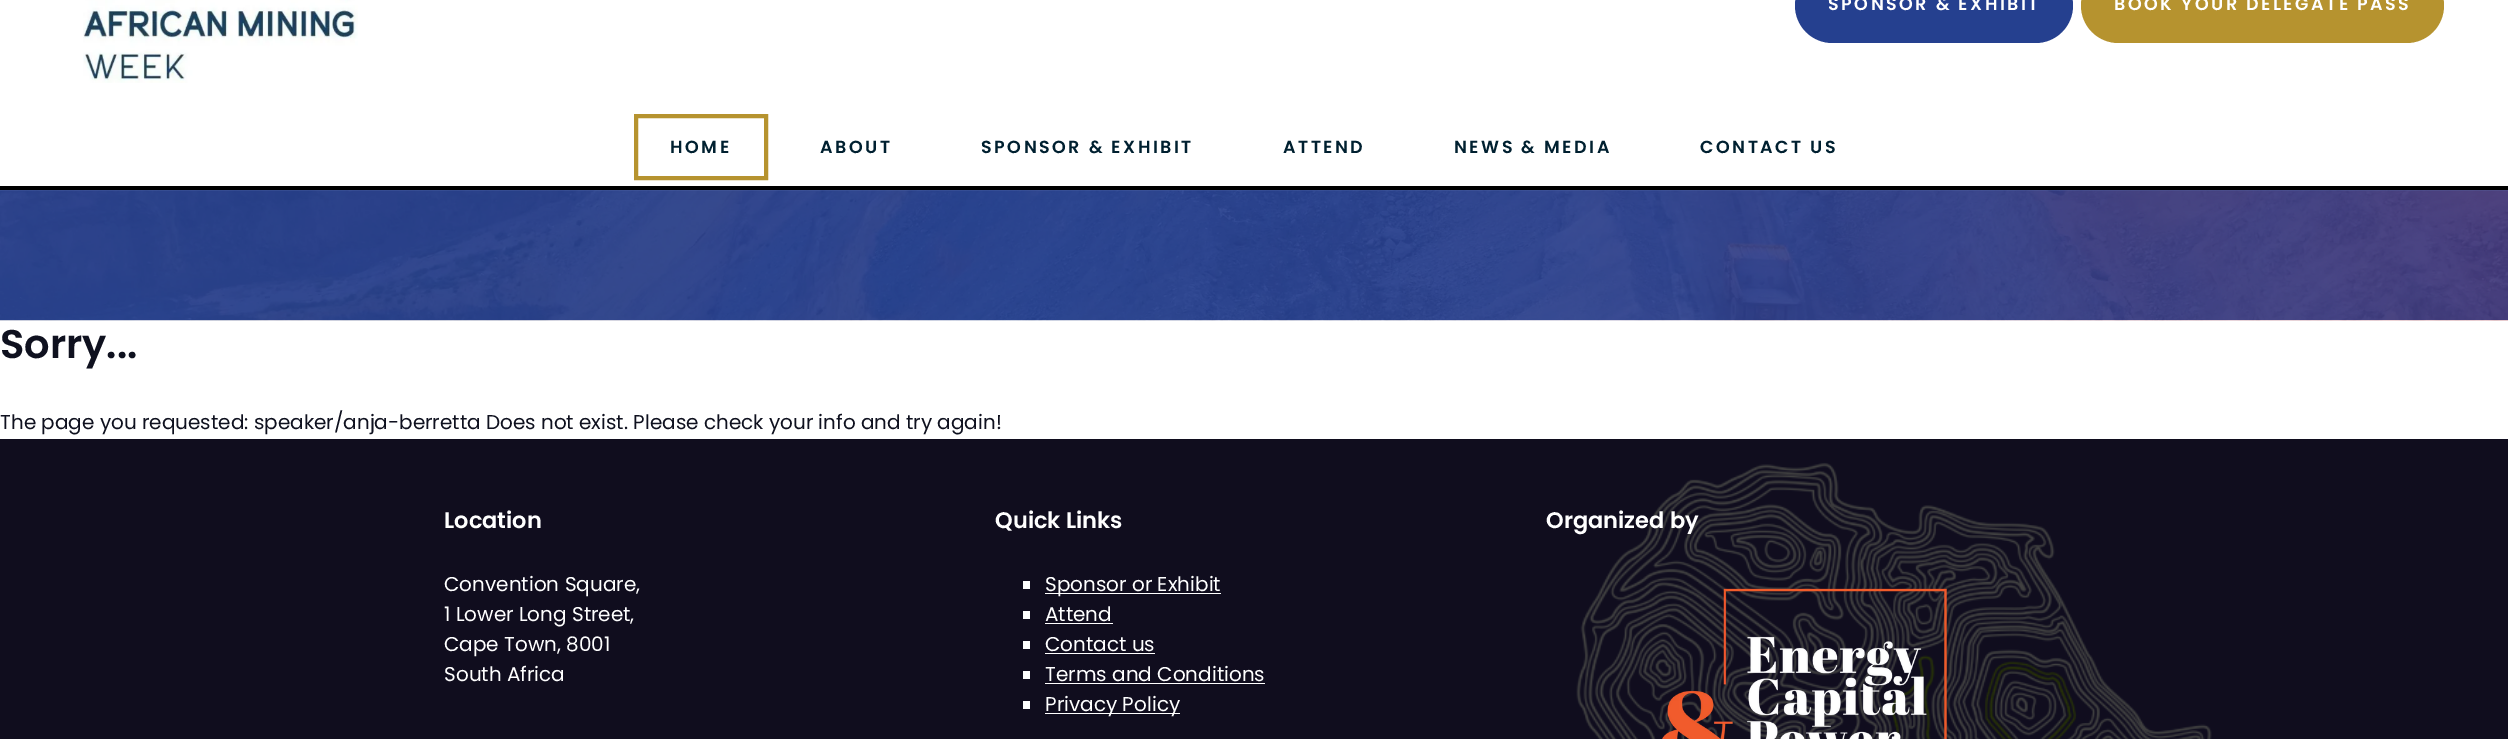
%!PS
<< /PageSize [2508 739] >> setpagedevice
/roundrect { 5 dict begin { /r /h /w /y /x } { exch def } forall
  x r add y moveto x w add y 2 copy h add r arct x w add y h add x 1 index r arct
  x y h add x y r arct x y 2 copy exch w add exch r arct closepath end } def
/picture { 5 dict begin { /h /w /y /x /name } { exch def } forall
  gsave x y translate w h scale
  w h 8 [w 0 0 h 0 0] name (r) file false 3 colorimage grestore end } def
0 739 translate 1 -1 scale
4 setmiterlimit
1 setgray
0 0 2508 739 rectfill
0 setgray
0 186 2508 4 rectfill
(img1.rgb) 83 0 275 83 picture
0.145 0.251 0.561 setrgbcolor
1795 -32 278 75 37.5 roundrect fill
/Poppins-SemiBold [17.5 0 0 -17.5 0 0] selectfont
1 setgray
1828 10 moveto 2.5 0 (SPONSOR & EXHIBIT) ashow
0.714 0.576 0.184 setrgbcolor
2081 -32 363 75 37.5 roundrect fill
1 setgray
2114 10 moveto 2.5 0 (BOOK YOUR DELEGATE PASS) ashow
0.714 0.576 0.184 setrgbcolor
4 setlinewidth
636 116 130 62 rectstroke
0 0.125 0.188 setrgbcolor
670 153 moveto 2.5 0 (HOME) ashow
820 153 moveto 2.5 0 (ABOUT) ashow
981 153 moveto 2.5 0 (SPONSOR & EXHIBIT) ashow
1283 153 moveto 2.5 0 (ATTEND) ashow
1454 153 moveto 2.5 0 (NEWS & MEDIA) ashow
1700 153 moveto 2.5 0 (CONTACT US) ashow
(img2.rgb) 0 190 2508 131 picture
/Poppins-SemiBold [40 0 0 -40 0 0] selectfont
0.059 0.067 0.122 setrgbcolor
0 358 moveto (Sorry...) show
/Poppins-Regular [20 0 0 -20 0 0] selectfont
0 429 moveto (The page you requested: speaker/anja-berretta Does not exist. Please check your info and try again!) show
0.063 0.051 0.118 setrgbcolor
0 439 2508 300 rectfill
(img3.rgb) 1576 462 636 277 picture
/Poppins-SemiBold [22.5 0 0 -22.5 0 0] selectfont
1 setgray
444 528 moveto (Location) show
/Poppins-Regular [20 0 0 -20 0 0] selectfont
444 591 moveto (Convention Square,) show
444 621 moveto (1 Lower Long Street,) show
444 651 moveto (Cape Town, 8001) show
444 681 moveto (South Africa) show
/Poppins-SemiBold [22.5 0 0 -22.5 0 0] selectfont
995 528 moveto (Quick Links) show
1023 581 7 8 rectfill
1045 593 176 1 rectfill
/Poppins-Regular [20 0 0 -20 0 0] selectfont
1045 591 moveto (Sponsor or Exhibit) show
1023 611 7 8 rectfill
1045 621 moveto (Attend) show
1045 623 68 1 rectfill
1023 641 7 8 rectfill
1045 651 moveto (Contact us) show
1045 653 110 1 rectfill
1023 671 7 8 rectfill
1045 681 moveto (Terms and Conditions) show
1045 683 220 1 rectfill
1023 701 7 8 rectfill
1045 713 135 1 rectfill
1045 711 moveto (Privacy Policy) show
/Poppins-SemiBold [22.5 0 0 -22.5 0 0] selectfont
1546 528 moveto (Organized by) show
(img4.rgb) 1662 588 285 151 picture
showpage
